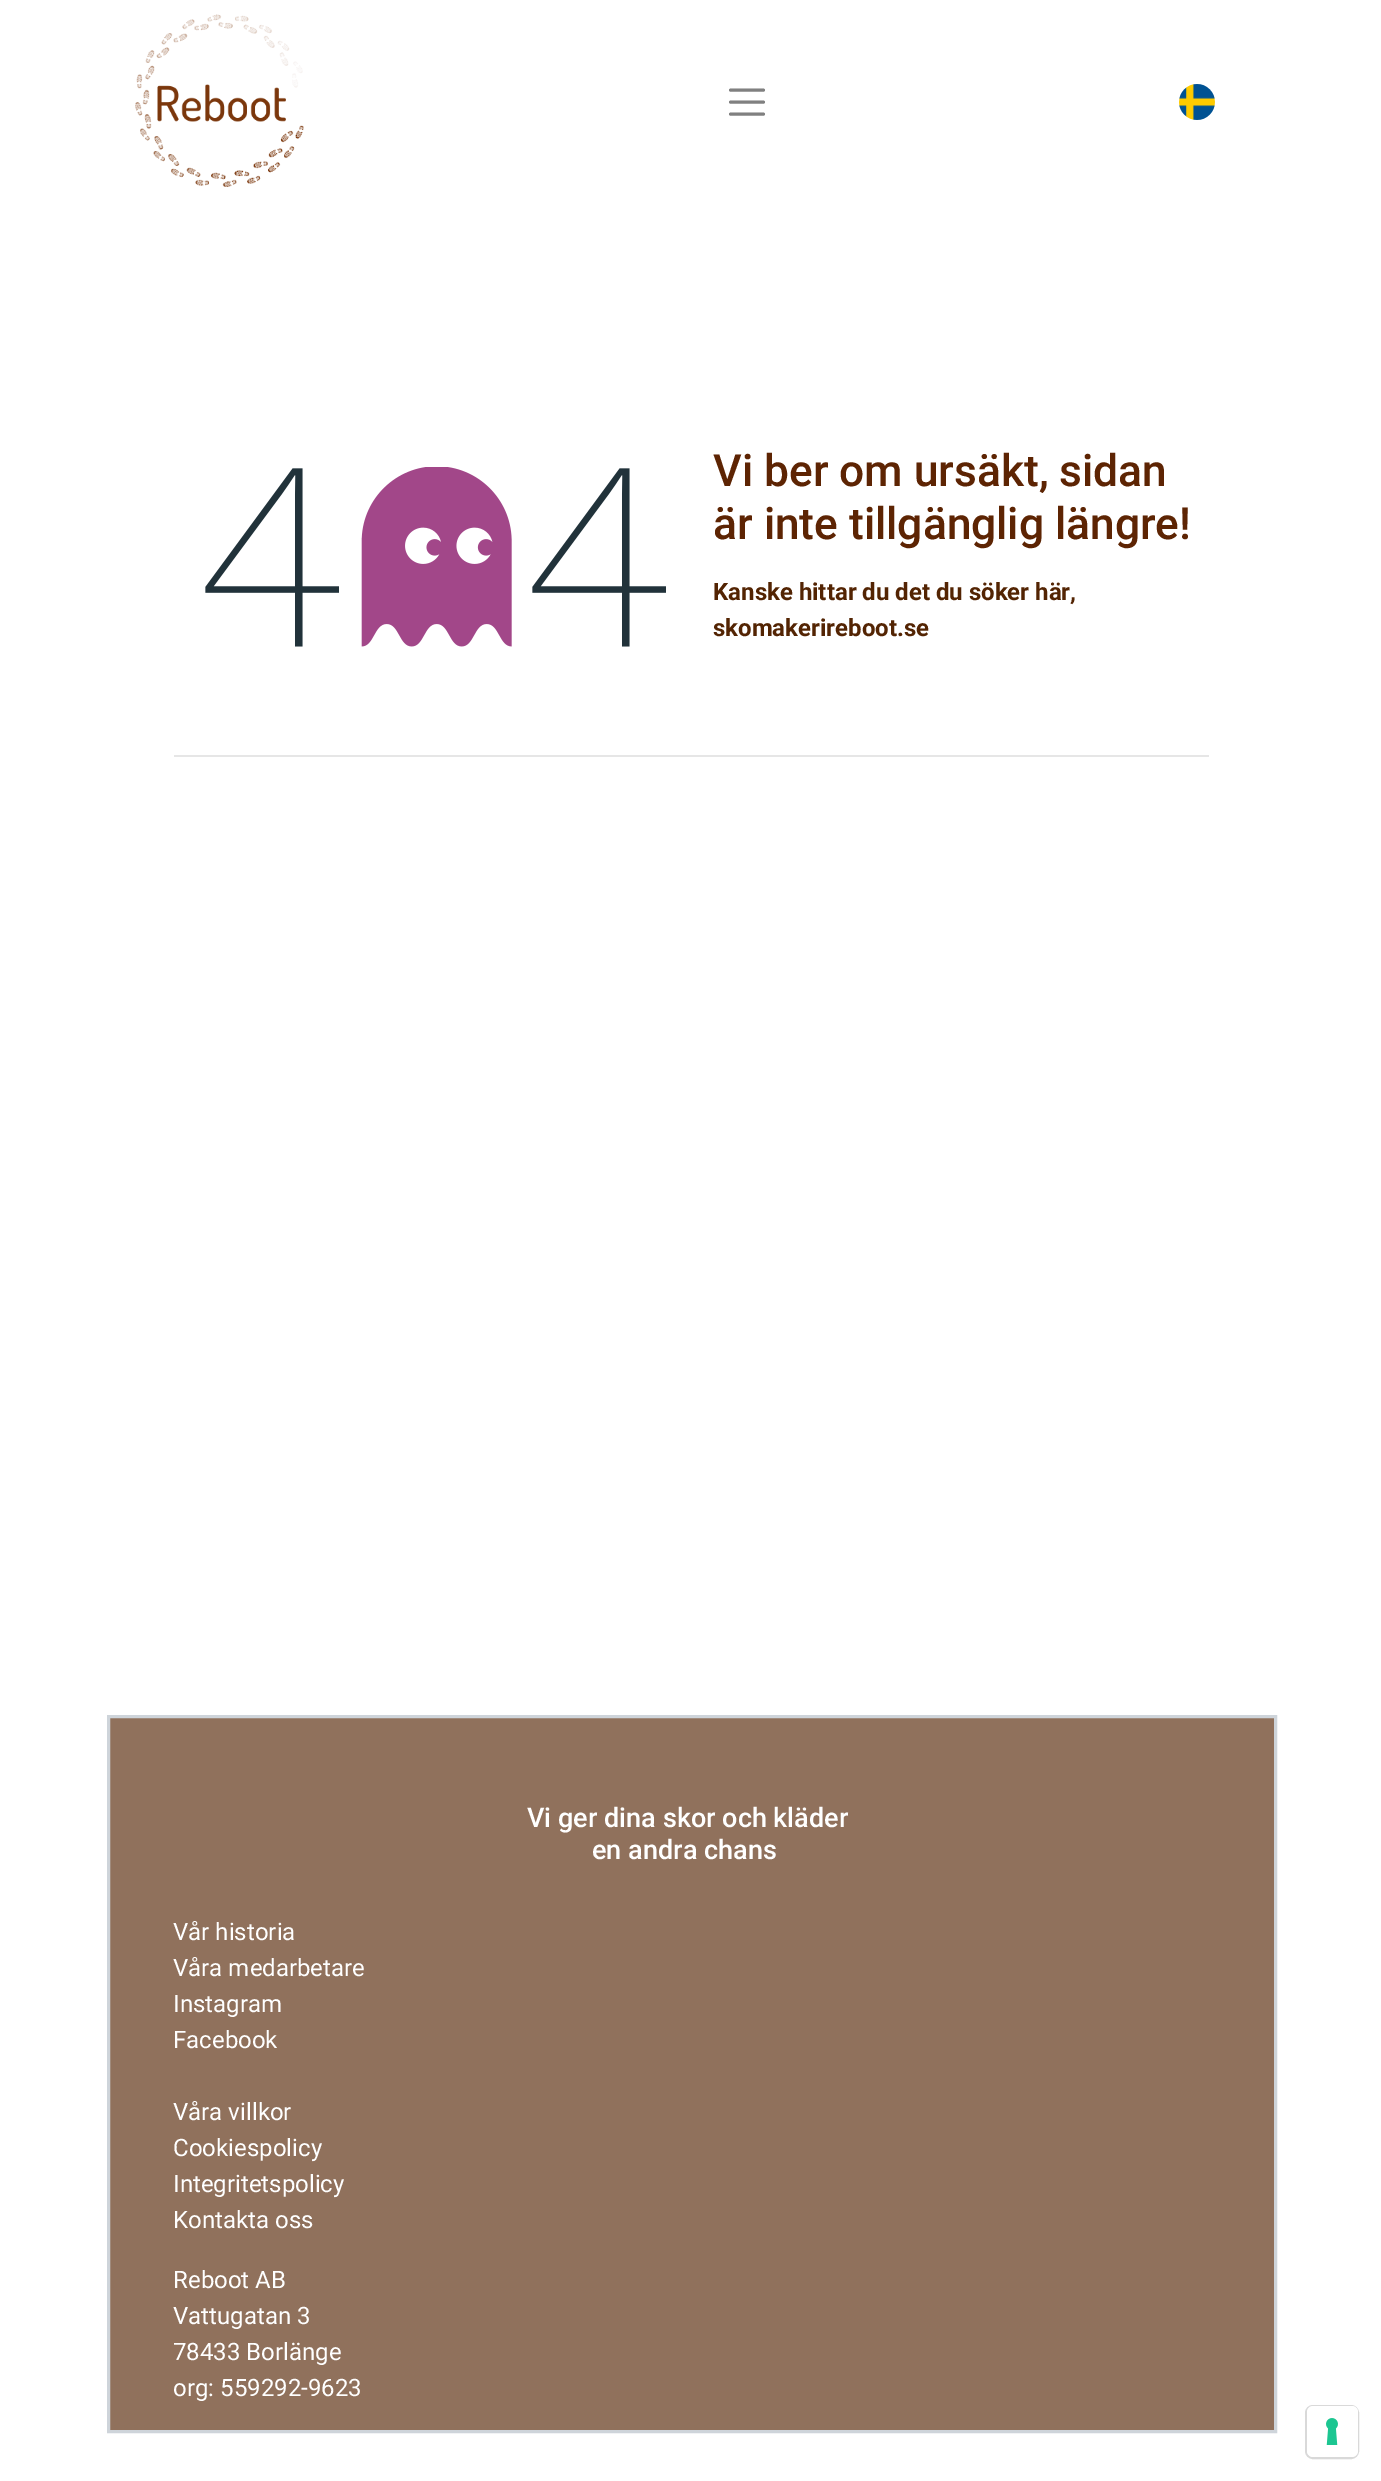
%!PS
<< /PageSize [1381 2481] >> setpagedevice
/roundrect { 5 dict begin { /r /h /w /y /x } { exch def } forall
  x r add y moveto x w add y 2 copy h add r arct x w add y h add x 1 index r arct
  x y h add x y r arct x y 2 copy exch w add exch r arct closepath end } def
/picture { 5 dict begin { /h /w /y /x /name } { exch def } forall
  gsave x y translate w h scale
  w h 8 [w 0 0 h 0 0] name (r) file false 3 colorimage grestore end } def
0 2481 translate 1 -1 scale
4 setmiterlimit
1 setgray
0 0 1381 2481 rectfill
(img1.rgb) 135 14 169 173 picture
0.502 setgray
3 setlinewidth
1 setlinecap
newpath 730.5 90 moveto 763.5 90 lineto 730.5 102 moveto 763.5 102 lineto 730.5 114 moveto 763.5 114 lineto stroke
(img2.rgb) 1179 84 36 36 picture
(img3.rgb) 205 467 461 180 picture
/Roboto-Medium [44.25 0 0 -44.25 0 0] selectfont
0.365 0.141 0.012 setrgbcolor
713 486 moveto (Vi ber om ursäkt, sidan) show
713 539 moveto (är inte tillgänglig längre!) show
/Roboto-Bold [24 0 0 -24 0 0] selectfont
0.325 0.141 0.012 setrgbcolor
713 600 moveto (Kanske hittar du det du söker här,) show
713 636 moveto (skomakerireboot.se) show
0.902 setgray
174 755 1035 2 rectfill
0.565 0.443 0.361 setrgbcolor
newpath 108.5 1716.5 moveto 1275.5 1716.5 lineto 1275.5 2431.5 lineto 108.5 2431.5 lineto closepath gsave fill grestore
0.808 0.831 0.855 setrgbcolor
0 setlinecap
stroke
/Roboto-Medium [27 0 0 -27 0 0] selectfont
1 setgray
527 1827 moveto (Vi ger dina skor och kläder) show
592 1859 moveto (en andra chans) show
/Roboto-Regular [24 0 0 -24 0 0] selectfont
173 1940 moveto (Vår historia) show
173 1976 moveto (Våra medarbetare) show
173 2012 moveto (Instagram) show
173 2048 moveto (Facebook) show
173 2120 moveto (Våra villkor) show
173 2156 moveto (Cookiespolicy) show
173 2192 moveto (Integritetspolicy) show
173 2228 moveto (Kontakta oss) show
173 2288 moveto (Reboot AB) show
173 2324 moveto (Vattugatan 3) show
173 2360 moveto (78433 Borlänge) show
173 2396 moveto (org: 559292-9623) show
0.851 setgray
2 setlinewidth
1306 2406 52 52 7 roundrect stroke
1 setgray
1307 2406 51 51 6 roundrect fill
(img4.rgb) 1326 2418 12 27 picture
showpage
